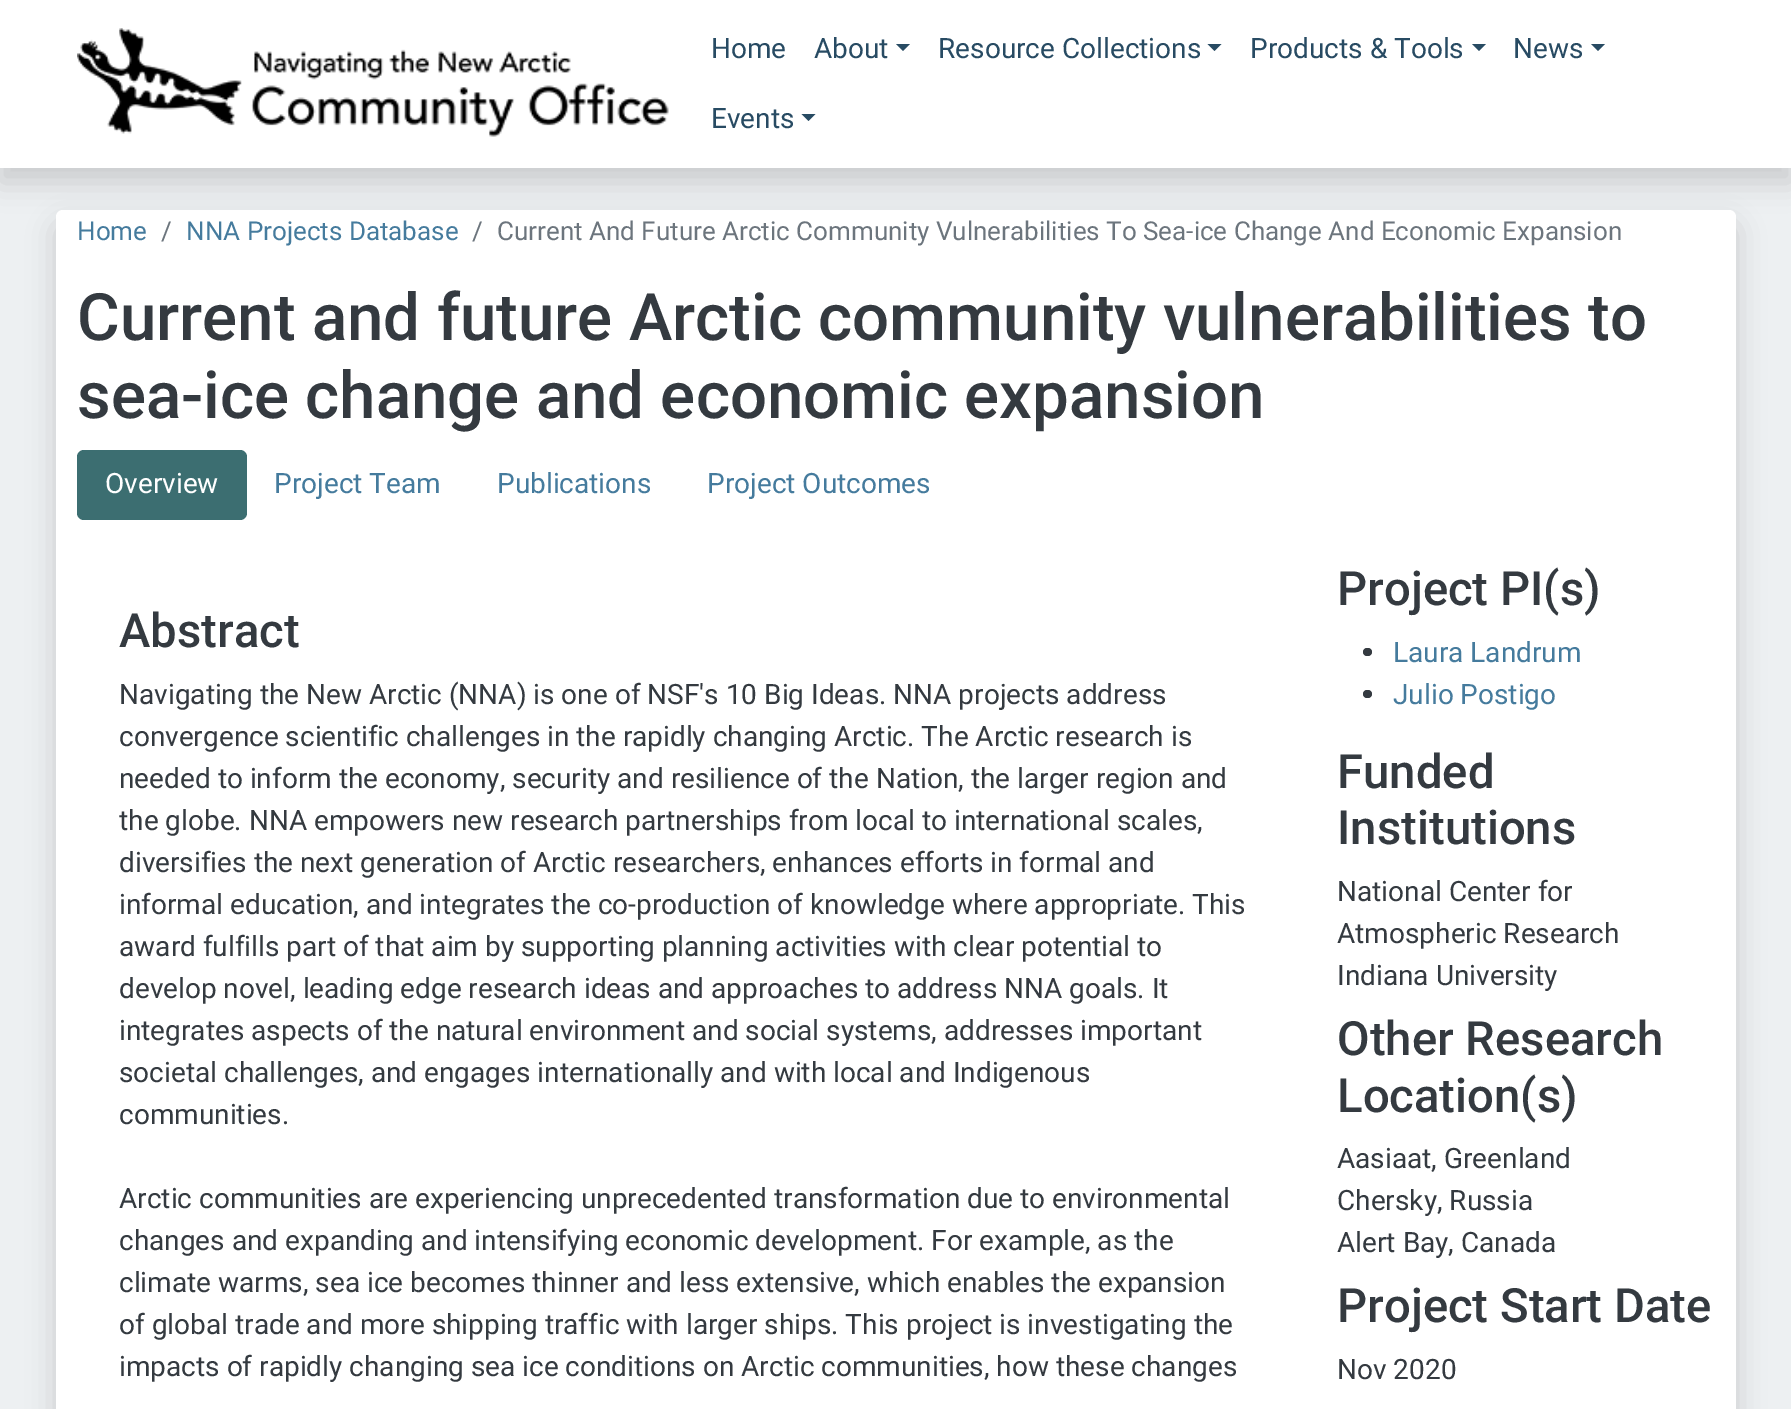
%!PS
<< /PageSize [1791 1409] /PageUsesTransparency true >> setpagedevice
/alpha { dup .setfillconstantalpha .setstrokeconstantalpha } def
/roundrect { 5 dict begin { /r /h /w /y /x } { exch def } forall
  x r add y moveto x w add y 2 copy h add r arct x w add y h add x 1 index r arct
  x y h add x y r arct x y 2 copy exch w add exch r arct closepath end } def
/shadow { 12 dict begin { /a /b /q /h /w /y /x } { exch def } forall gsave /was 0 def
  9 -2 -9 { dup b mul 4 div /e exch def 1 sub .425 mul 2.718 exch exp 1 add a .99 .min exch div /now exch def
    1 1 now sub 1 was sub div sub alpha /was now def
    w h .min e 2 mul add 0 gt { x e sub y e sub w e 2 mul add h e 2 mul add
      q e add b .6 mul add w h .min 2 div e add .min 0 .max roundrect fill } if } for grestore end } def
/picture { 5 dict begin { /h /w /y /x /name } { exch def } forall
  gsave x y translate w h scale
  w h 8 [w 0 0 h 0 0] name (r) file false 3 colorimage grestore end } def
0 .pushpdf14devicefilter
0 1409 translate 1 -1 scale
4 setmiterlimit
0.929 0.941 0.949 setrgbcolor
0 0 1791 1409 rectfill
0 setgray
0 14 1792 168 0 14 0.15 shadow
1 setgray
0 0 1791 168 rectfill
(img1.rgb) 77 28 592 109 picture
/Roboto-Regular [28 0 0 -28 0 0] selectfont
0.157 0.294 0.388 setrgbcolor
711 58 moveto (Home) show
814 58 moveto (About) show
newpath 896 44 moveto 910 44 lineto 903 51 lineto closepath fill
938 58 moveto (Resource Collections) show
newpath 1207.5 44 moveto 1221.5 44 lineto 1214.5 51 lineto closepath fill
1250 58 moveto (Products & Tools) show
newpath 1472 44 moveto 1486 44 lineto 1479 51 lineto closepath fill
1513 58 moveto (News) show
newpath 1591 44 moveto 1605 44 lineto 1598 51 lineto closepath fill
711 128 moveto (Events) show
newpath 801.5 114 moveto 815.5 114 lineto 808.5 121 lineto closepath fill
0 setgray
56 224 1680 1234 7 14 0.15 shadow
1 setgray
newpath 63 210 moveto 1729 210 lineto 1733 210 1736 213 1736 217 curveto 1736 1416 lineto 56 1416 lineto 56 217 lineto 56 213 59 210 63 210 curveto closepath fill
/Roboto-Regular [26 0 0 -26 0 0] selectfont
0.271 0.482 0.616 setrgbcolor
77 240 moveto (Home) show
0.424 0.459 0.49 setrgbcolor
161 240 moveto (/) show
0.271 0.482 0.616 setrgbcolor
186 240 moveto (NNA Projects Database) show
0.424 0.459 0.49 setrgbcolor
472 240 moveto (/) show
497 240 moveto (Current And Future Arctic Community Vulnerabilities To Sea-ice Change And Economic Expansion) show
/Roboto-Medium [65.4 0 0 -65.4 0 0] selectfont
0.204 0.227 0.251 setrgbcolor
77 340 moveto (Current and future Arctic community vulnerabilities to) show
77 418 moveto (sea-ice change and economic expansion) show
0.235 0.431 0.443 setrgbcolor
77 450 170 70 7 roundrect fill
/Roboto-Regular [28 0 0 -28 0 0] selectfont
1 setgray
105 493 moveto (Overview) show
0.271 0.482 0.616 setrgbcolor
274 493 moveto (Project Team) show
497 493 moveto (Publications) show
707 493 moveto (Project Outcomes) show
/Roboto-Medium [47.25 0 0 -47.25 0 0] selectfont
0.204 0.227 0.251 setrgbcolor
119 647 moveto (Abstract) show
/Roboto-Regular [28 0 0 -28 0 0] selectfont
119 704 moveto (Navigating the New Arctic \(NNA\) is one of NSF's 10 Big Ideas. NNA projects address) show
119 746 moveto (convergence scientific challenges in the rapidly changing Arctic. The Arctic research is) show
119 788 moveto (needed to inform the economy, security and resilience of the Nation, the larger region and) show
119 830 moveto (the globe. NNA empowers new research partnerships from local to international scales,) show
119 872 moveto (diversifies the next generation of Arctic researchers, enhances efforts in formal and) show
119 914 moveto (informal education, and integrates the co-production of knowledge where appropriate. This) show
119 956 moveto (award fulfills part of that aim by supporting planning activities with clear potential to) show
119 998 moveto (develop novel, leading edge research ideas and approaches to address NNA goals. It) show
119 1040 moveto (integrates aspects of the natural environment and social systems, addresses important) show
119 1082 moveto (societal challenges, and engages internationally and with local and Indigenous) show
119 1124 moveto (communities.) show
119 1208 moveto (Arctic communities are experiencing unprecedented transformation due to environmental) show
119 1250 moveto (changes and expanding and intensifying economic development. For example, as the) show
119 1292 moveto (climate warms, sea ice becomes thinner and less extensive, which enables the expansion) show
119 1334 moveto (of global trade and more shipping traffic with larger ships. This project is investigating the) show
119 1376 moveto (impacts of rapidly changing sea ice conditions on Arctic communities, how these changes) show
/Roboto-Medium [47.25 0 0 -47.25 0 0] selectfont
1337 605 moveto (Project PI\(s\)) show
1363 648 9 8 4 roundrect fill
/Roboto-Regular [28 0 0 -28 0 0] selectfont
0.271 0.482 0.616 setrgbcolor
1393 662 moveto (Laura Landrum) show
0.204 0.227 0.251 setrgbcolor
1363 690 9 8 4 roundrect fill
0.271 0.482 0.616 setrgbcolor
1393 704 moveto (Julio Postigo) show
/Roboto-Medium [47.25 0 0 -47.25 0 0] selectfont
0.204 0.227 0.251 setrgbcolor
1337 788 moveto (Funded) show
1337 844 moveto (Institutions) show
/Roboto-Regular [28 0 0 -28 0 0] selectfont
1337 901 moveto (National Center for) show
1337 943 moveto (Atmospheric Research) show
1337 985 moveto (Indiana University) show
/Roboto-Medium [47.25 0 0 -47.25 0 0] selectfont
1337 1055 moveto (Other Research) show
1337 1112 moveto (Location\(s\)) show
/Roboto-Regular [28 0 0 -28 0 0] selectfont
1337 1168 moveto (Aasiaat, Greenland) show
1337 1210 moveto (Chersky, Russia) show
1337 1252 moveto (Alert Bay, Canada) show
/Roboto-Medium [47.25 0 0 -47.25 0 0] selectfont
1337 1322 moveto (Project Start Date) show
/Roboto-Regular [28 0 0 -28 0 0] selectfont
1337 1379 moveto (Nov 2020) show
.poppdf14devicefilter showpage
